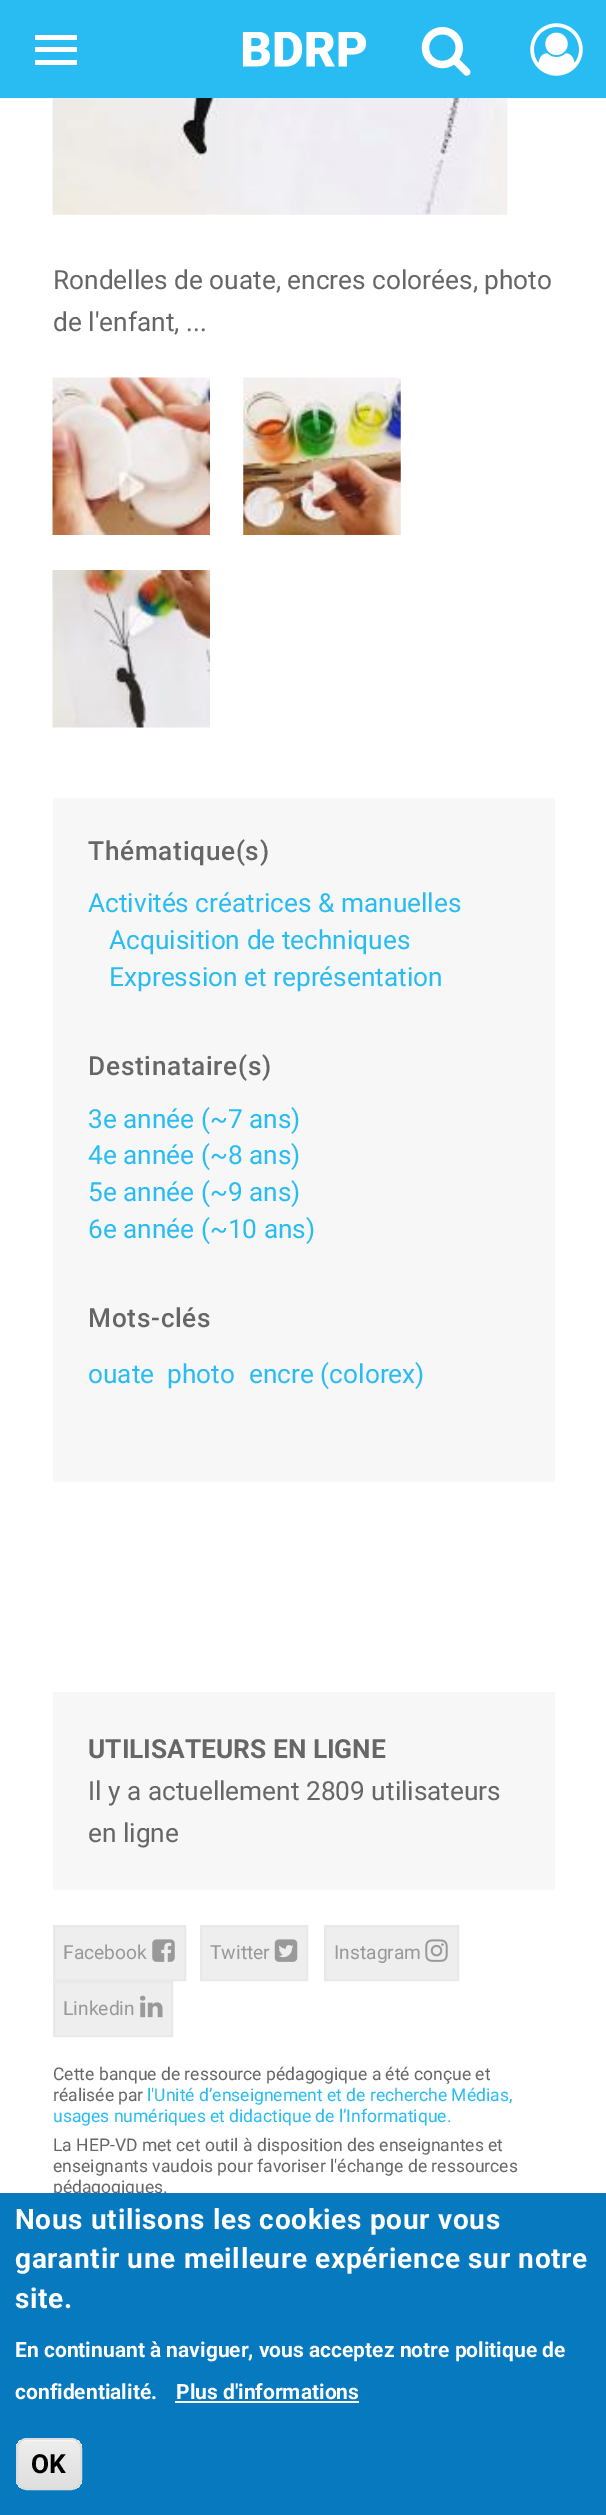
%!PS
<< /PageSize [606 2515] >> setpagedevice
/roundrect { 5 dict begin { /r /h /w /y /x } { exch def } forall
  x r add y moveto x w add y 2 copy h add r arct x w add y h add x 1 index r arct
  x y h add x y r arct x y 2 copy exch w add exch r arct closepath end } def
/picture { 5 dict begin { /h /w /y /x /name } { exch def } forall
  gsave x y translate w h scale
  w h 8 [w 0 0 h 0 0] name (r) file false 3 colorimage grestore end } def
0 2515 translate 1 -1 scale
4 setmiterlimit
1 setgray
0 0 606 2515 rectfill
0.161 0.737 0.953 setrgbcolor
0 0 606 98 rectfill
1 setgray
35 35 42 5 rectfill
35 47 42 5 rectfill
35 60 42 5 rectfill
(img1.rgb) 242 32 125 35 picture
(img2.rgb) 421 27 50 49 picture
(img3.rgb) 530 23 53 53 picture
(img4.rgb) 52 98 456 117 picture
/Roboto-Regular [26.25 0 0 -26.25 0 0] selectfont
0.4 setgray
53 289 moveto (Rondelles de ouate, encres colorées, photo) show
53 331 moveto (de l'enfant, ...) show
(img5.rgb) 52 377 158 158 picture
(img6.rgb) 243 377 158 158 picture
(img7.rgb) 52 570 158 158 picture
0.969 setgray
53 798 502 684 rectfill
/Roboto-Medium [26.25 0 0 -26.25 0 0] selectfont
0.4 setgray
88 860 moveto 0.7 0 (Thématique\(s\)) ashow
/Roboto-Regular [26.25 0 0 -26.25 0 0] selectfont
0.161 0.737 0.953 setrgbcolor
88 912 moveto (Activités créatrices & manuelles) show
109 949 moveto (Acquisition de techniques) show
109 986 moveto (Expression et représentation) show
/Roboto-Medium [26.25 0 0 -26.25 0 0] selectfont
0.4 setgray
88 1075 moveto 0.7 0 (Destinataire\(s\)) ashow
/Roboto-Regular [26.25 0 0 -26.25 0 0] selectfont
0.161 0.737 0.953 setrgbcolor
88 1128 moveto (3e année \(~7 ans\)) show
88 1164 moveto (4e année \(~8 ans\)) show
88 1201 moveto (5e année \(~9 ans\)) show
88 1238 moveto (6e année \(~10 ans\)) show
/Roboto-Medium [26.25 0 0 -26.25 0 0] selectfont
0.4 setgray
88 1327 moveto 0.7 0 (Mots-clés) ashow
/Roboto-Regular [26.25 0 0 -26.25 0 0] selectfont
0.161 0.737 0.953 setrgbcolor
88 1383 moveto (ouate) show
167 1383 moveto (photo) show
249 1383 moveto (encre \(colorex\)) show
0.969 setgray
53 1692 502 198 rectfill
/Roboto-Bold [26.25 0 0 -26.25 0 0] selectfont
0.4 setgray
88 1758 moveto (UTILISATEURS EN LIGNE) show
/Roboto-Regular [26.25 0 0 -26.25 0 0] selectfont
88 1800 moveto (Il y a actuellement 2809 utilisateurs) show
88 1842 moveto (en ligne) show
0.933 setgray
newpath 54 1926 moveto 185 1926 lineto 185 1980 lineto 54 1980 lineto closepath gsave fill grestore
0.914 setgray
2 setlinewidth
stroke
/Roboto-Regular [19.25 0 0 -19.25 0 0] selectfont
0.6 setgray
63 1959 moveto (Facebook) show
(img8.rgb) 152 1939 23 23 picture
0.933 setgray
newpath 201 1926 moveto 307 1926 lineto 307 1980 lineto 201 1980 lineto closepath gsave fill grestore
0.914 setgray
stroke
0.6 setgray
210 1959 moveto (Twitter) show
(img9.rgb) 274 1939 24 23 picture
0.933 setgray
newpath 325 1926 moveto 458 1926 lineto 458 1980 lineto 325 1980 lineto closepath gsave fill grestore
0.914 setgray
stroke
0.6 setgray
334 1959 moveto (Instagram) show
(img10.rgb) 425 1939 23 23 picture
0.933 setgray
newpath 54 1982 moveto 172 1982 lineto 172 2036 lineto 54 2036 lineto closepath gsave fill grestore
0.914 setgray
stroke
0.6 setgray
63 2015 moveto (Linkedin) show
(img11.rgb) 140 1995 23 23 picture
/Roboto-Regular [17.5 0 0 -17.5 0 0] selectfont
0.4 setgray
53 2080 moveto (Cette banque de ressource pédagogique a été conçue et) show
53 2101 moveto (réalisée par) show
0.161 0.737 0.953 setrgbcolor
147 2101 moveto (l'Unité d’enseignement et de recherche Médias,) show
53 2122 moveto (usages numériques et didactique de l’Informatique.) show
0.4 setgray
53 2151 moveto (La HEP-VD met cet outil à disposition des enseignantes et) show
53 2172 moveto (enseignants vaudois pour favoriser l'échange de ressources) show
53 2193 moveto (pédagogiques.) show
0.027 0.475 0.749 setrgbcolor
0 2193 606 322 rectfill
/Roboto-Bold [28 0 0 -28 0 0] selectfont
1 setgray
15 2229 moveto 0.7 0 (Nous utilisons les cookies pour vous) ashow
15 2268 moveto 0.7 0 (garantir une meilleure expérience sur notre) ashow
15 2308 moveto 0.7 0 (site.) ashow
/Roboto-Bold [21 0 0 -21 0 0] selectfont
15 2357 moveto (En continuant à naviguer, vous acceptez notre politique de) show
15 2399 moveto (confidentialité.) show
176 2399 moveto (Plus d'informations) show
175 2401 184 2 rectfill
gsave
16 2438 66 52 11 roundrect clip newpath
gsave newpath 16 2440 moveto 82 2440 lineto 82 2489 lineto 16 2489 lineto closepath clip newpath
<< /ShadingType 2 /ColorSpace /DeviceRGB /Coords [49 2440 49 2489] /Extend [true true] /Function << /FunctionType 3 /Domain [0 1] /Functions [<< /FunctionType 2 /Domain [0 1] /C0 [0.929 0.929 0.929] /C1 [0.929 0.929 0.929] /N 1 >> << /FunctionType 2 /Domain [0 1] /C0 [0.929 0.929 0.929] /C1 [0.875 0.875 0.875] /N 1 >>] /Bounds [0.05] /Encode [0 1 0 1] >> >> shfill grestore
grestore
newpath 26 2441 moveto 72 2441 lineto 77 2441 80 2445 80 2450 curveto 80 2482 lineto 79 2485 lineto 80 2484 81 2482 81 2480 curveto 81 2449 lineto 81 2444 77 2440 72 2440 curveto 27 2440 lineto 22 2440 18 2444 18 2449 curveto 18 2450 lineto 18 2445 21 2441 26 2441 curveto closepath fill
0.863 setgray
17 2439 64 50 10 roundrect stroke
/Roboto-Bold [26.25 0 0 -26.25 0 0] selectfont
0 setgray
31 2473 moveto (OK) show
showpage
